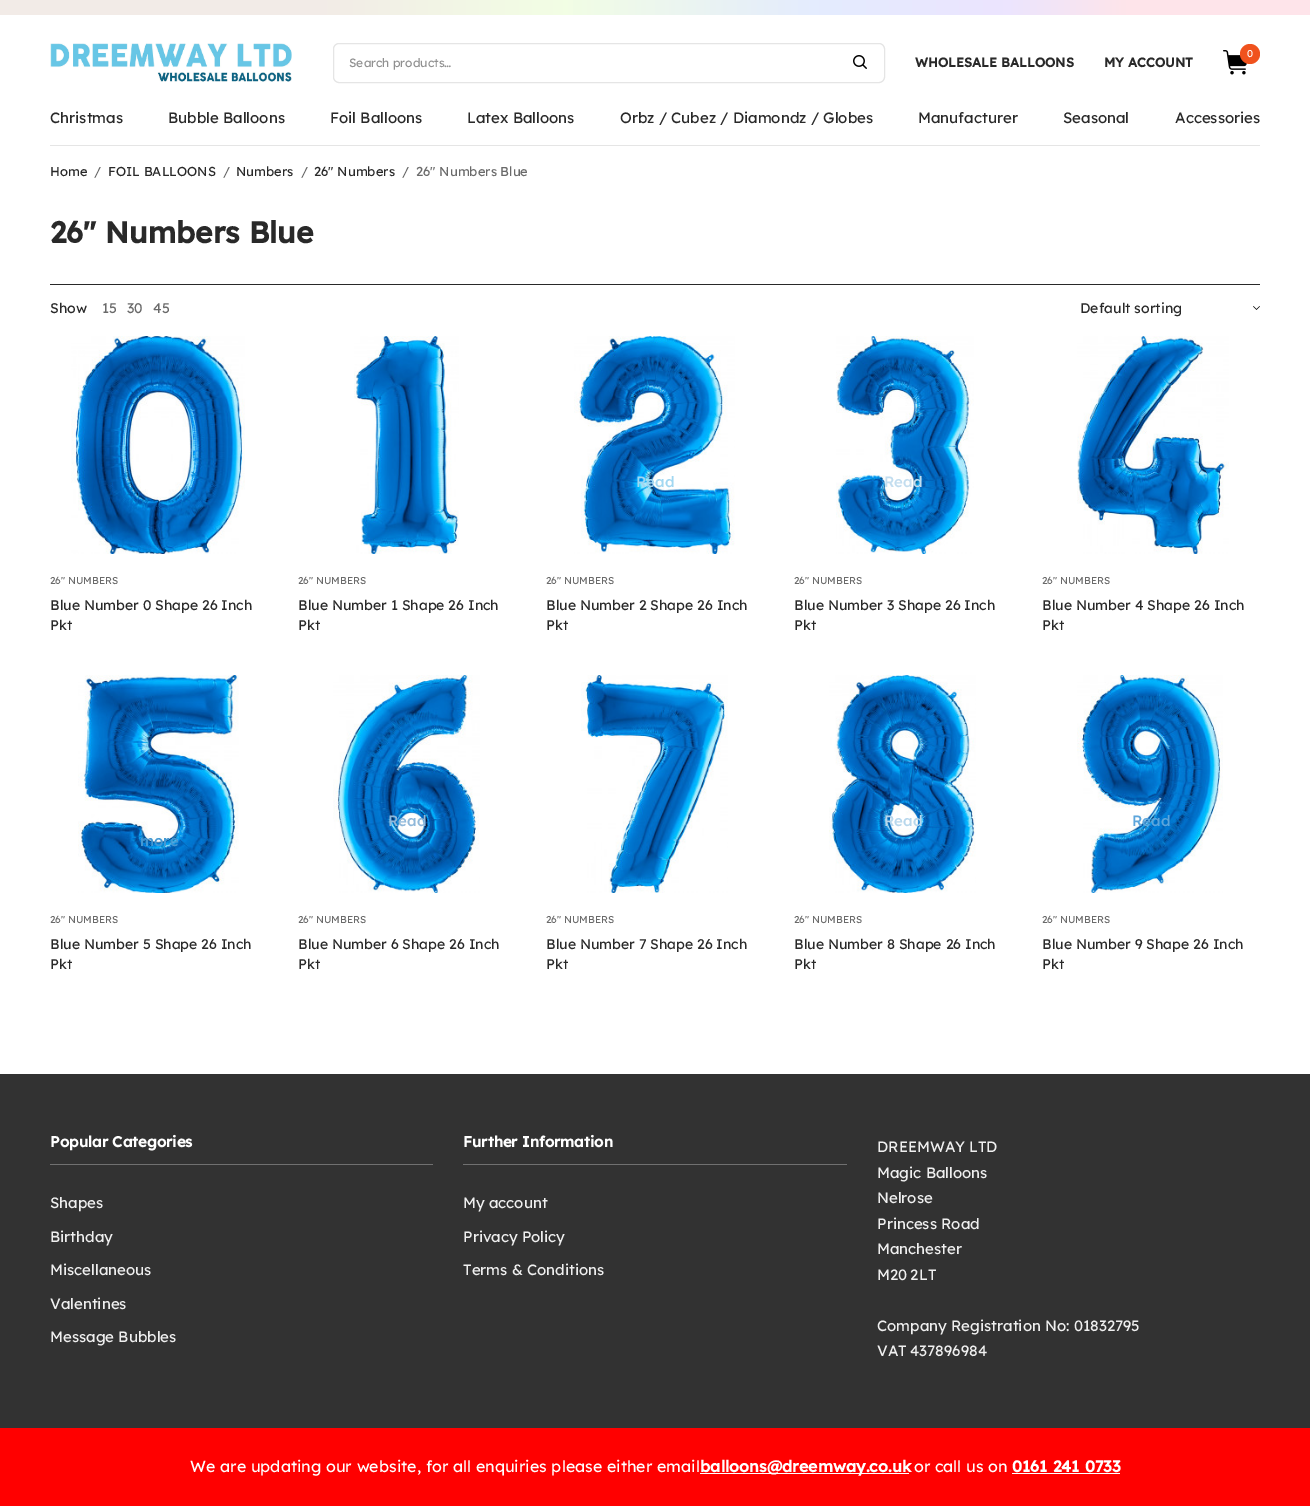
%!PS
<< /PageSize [1310 1506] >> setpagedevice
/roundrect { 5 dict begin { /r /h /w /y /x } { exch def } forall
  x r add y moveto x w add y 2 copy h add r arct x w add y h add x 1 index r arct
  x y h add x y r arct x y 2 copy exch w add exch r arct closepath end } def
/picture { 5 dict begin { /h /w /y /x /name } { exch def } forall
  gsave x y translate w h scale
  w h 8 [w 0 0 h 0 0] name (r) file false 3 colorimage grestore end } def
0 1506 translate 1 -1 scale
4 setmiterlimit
1 setgray
0 0 1310 1506 rectfill
gsave newpath 0 0 moveto 1310 0 lineto 1310 15 lineto 0 15 lineto closepath clip newpath
<< /ShadingType 2 /ColorSpace /DeviceRGB /Coords [0 3 1310 3] /Extend [true true] /Function << /FunctionType 3 /Domain [0 1] /Functions [<< /FunctionType 2 /Domain [0 1] /C0 [0.949 0.922 0.906] /C1 [0.949 0.922 0.906] /N 1 >> << /FunctionType 2 /Domain [0 1] /C0 [0.949 0.922 0.906] /C1 [0.949 0.996 0.894] /N 1 >> << /FunctionType 2 /Domain [0 1] /C0 [0.949 0.996 0.894] /C1 [0.894 0.925 0.996] /N 1 >> << /FunctionType 2 /Domain [0 1] /C0 [0.894 0.925 0.996] /C1 [0.925 0.894 0.996] /N 1 >> << /FunctionType 2 /Domain [0 1] /C0 [0.925 0.894 0.996] /C1 [0.996 0.894 0.918] /N 1 >> << /FunctionType 2 /Domain [0 1] /C0 [0.996 0.894 0.918] /C1 [0.996 0.894 0.918] /N 1 >>] /Bounds [0.24 0.43 0.62 0.77 0.86] /Encode [0 1 0 1 0 1 0 1 0 1 0 1] >> >> shfill grestore
(img1.rgb) 50 43 242 39 picture
(img2.rgb) 1223 50 24 25 picture
0.941 0.322 0.114 setrgbcolor
newpath 1250 54 10 0 360 arc closepath fill
/Lexend-Regular [10 0 0 -10 0 0] selectfont
1 setgray
1247 57 moveto (0) show
0.898 setgray
333.5 43.5 551 39 5.5 roundrect stroke
/Lexend-Regular [12 0 0 -12 0 0] selectfont
0.565 setgray
349 67 moveto (Search products…) show
(img3.rgb) 853 55 14 14 picture
/Lexend-Bold [13 0 0 -13 0 0] selectfont
0.161 setgray
915 67 moveto (WHOLESALE BALLOONS) show
1104 67 moveto (MY ACCOUNT) show
/Lexend-Regular [15 0 0 -15 0 0] selectfont
50 123 moveto (Christmas) show
168 123 moveto (Bubble Balloons) show
330 123 moveto (Foil Balloons) show
467 123 moveto (Latex Balloons) show
620 123 moveto (Orbz / Cubez / Diamondz / Globes) show
918 123 moveto (Manufacturer) show
1063 123 moveto (Seasonal) show
1175 123 moveto (Accessories) show
0.898 setgray
50 145 1210 1 rectfill
/Lexend-Regular [13 0 0 -13 0 0] selectfont
0.161 setgray
50 176 moveto (Home) show
0.416 setgray
94 176 moveto (/) show
0.161 setgray
108 176 moveto (FOIL BALLOONS) show
0.416 setgray
223 176 moveto (/) show
0.161 setgray
236 176 moveto (Numbers) show
0.416 setgray
301 176 moveto (/) show
0.161 setgray
314 176 moveto (26" Numbers) show
0.416 setgray
402 176 moveto (/) show
416 176 moveto (26" Numbers Blue) show
/Lexend-Bold [30 0 0 -30 0 0] selectfont
0.161 setgray
50 243 moveto (26" Numbers Blue) show
50 284 1210 1 rectfill
/Lexend-Regular [14 0 0 -14 0 0] selectfont
50 313 moveto (Show) show
0.416 setgray
102 313 moveto (15) show
127 313 moveto (30) show
153 313 moveto (45) show
(img4.rgb) 1253 306 7 4 picture
0.161 setgray
1080 313 moveto (Default sorting) show
(img5.rgb) 71 336 174 218 picture
/Lexend-Regular [10 0 0 -10 0 0] selectfont
0.416 setgray
50 584 moveto (26" NUMBERS) show
/Lexend-Regular [14 0 0 -14 0 0] selectfont
0.161 setgray
50 610 moveto (Blue Number 0 Shape 26 Inch) show
50 630 moveto (Pkt) show
(img6.rgb) 354 336 105 218 picture
/Lexend-Regular [10 0 0 -10 0 0] selectfont
0.416 setgray
298 584 moveto (26" NUMBERS) show
/Lexend-Regular [14 0 0 -14 0 0] selectfont
0.161 setgray
298 610 moveto (Blue Number 1 Shape 26 Inch) show
298 630 moveto (Pkt) show
(img7.rgb) 574 336 161 218 picture
/Lexend-Medium [15 0 0 -15 0 0] selectfont
0.631 0.843 0.945 setrgbcolor
636 487 moveto (Read) show
/Lexend-Regular [10 0 0 -10 0 0] selectfont
0.416 setgray
546 584 moveto (26" NUMBERS) show
/Lexend-Regular [14 0 0 -14 0 0] selectfont
0.161 setgray
546 610 moveto (Blue Number 2 Shape 26 Inch) show
546 630 moveto (Pkt) show
(img8.rgb) 836 336 138 218 picture
/Lexend-Medium [15 0 0 -15 0 0] selectfont
0.761 0.867 0.937 setrgbcolor
884 487 moveto (Read) show
/Lexend-Regular [10 0 0 -10 0 0] selectfont
0.416 setgray
794 584 moveto (26" NUMBERS) show
/Lexend-Regular [14 0 0 -14 0 0] selectfont
0.161 setgray
794 610 moveto (Blue Number 3 Shape 26 Inch) show
794 630 moveto (Pkt) show
(img9.rgb) 1077 336 152 218 picture
/Lexend-Regular [10 0 0 -10 0 0] selectfont
0.416 setgray
1042 584 moveto (26" NUMBERS) show
/Lexend-Regular [14 0 0 -14 0 0] selectfont
0.161 setgray
1042 610 moveto (Blue Number 4 Shape 26 Inch) show
1042 630 moveto (Pkt) show
(img10.rgb) 78 675 161 218 picture
/Lexend-Medium [15 0 0 -15 0 0] selectfont
0.267 0.596 0.827 setrgbcolor
140 846 moveto (more) show
/Lexend-Regular [10 0 0 -10 0 0] selectfont
0.416 setgray
50 923 moveto (26" NUMBERS) show
/Lexend-Regular [14 0 0 -14 0 0] selectfont
0.161 setgray
50 949 moveto (Blue Number 5 Shape 26 Inch) show
50 969 moveto (Pkt) show
(img11.rgb) 333 675 147 218 picture
/Lexend-Medium [15 0 0 -15 0 0] selectfont
0.561 0.722 0.855 setrgbcolor
388 826 moveto (Read) show
/Lexend-Regular [10 0 0 -10 0 0] selectfont
0.416 setgray
298 923 moveto (26" NUMBERS) show
/Lexend-Regular [14 0 0 -14 0 0] selectfont
0.161 setgray
298 949 moveto (Blue Number 6 Shape 26 Inch) show
298 969 moveto (Pkt) show
(img12.rgb) 581 675 147 218 picture
/Lexend-Regular [10 0 0 -10 0 0] selectfont
0.416 setgray
546 923 moveto (26" NUMBERS) show
/Lexend-Regular [14 0 0 -14 0 0] selectfont
0.161 setgray
546 949 moveto (Blue Number 7 Shape 26 Inch) show
546 969 moveto (Pkt) show
(img13.rgb) 829 675 147 218 picture
/Lexend-Medium [15 0 0 -15 0 0] selectfont
0.718 0.843 0.925 setrgbcolor
884 826 moveto (Read) show
/Lexend-Regular [10 0 0 -10 0 0] selectfont
0.416 setgray
794 923 moveto (26" NUMBERS) show
/Lexend-Regular [14 0 0 -14 0 0] selectfont
0.161 setgray
794 949 moveto (Blue Number 8 Shape 26 Inch) show
794 969 moveto (Pkt) show
(img14.rgb) 1077 675 146 218 picture
/Lexend-Medium [15 0 0 -15 0 0] selectfont
0.365 0.651 0.863 setrgbcolor
1132 826 moveto (Read) show
/Lexend-Regular [10 0 0 -10 0 0] selectfont
0.416 setgray
1042 923 moveto (26" NUMBERS) show
/Lexend-Regular [14 0 0 -14 0 0] selectfont
0.161 setgray
1042 949 moveto (Blue Number 9 Shape 26 Inch) show
1042 969 moveto (Pkt) show
0.196 setgray
0 1074 1310 354 rectfill
0.439 setgray
50 1164 383 1 rectfill
/Lexend-Bold [15 0 0 -15 0 0] selectfont
1 setgray
50 1147 moveto (Popular Categories) show
/Lexend-Regular [15 0 0 -15 0 0] selectfont
0.937 setgray
50 1208 moveto (Shapes) show
50 1242 moveto (Birthday) show
50 1275 moveto (Miscellaneous) show
50 1309 moveto (Valentines) show
50 1342 moveto (Message Bubbles) show
0.439 setgray
463 1164 384 1 rectfill
/Lexend-Bold [15 0 0 -15 0 0] selectfont
1 setgray
463 1147 moveto (Further Information) show
/Lexend-Regular [15 0 0 -15 0 0] selectfont
0.937 setgray
463 1208 moveto (My account) show
463 1242 moveto (Privacy Policy) show
463 1275 moveto (Terms & Conditions) show
877 1152 moveto -1 0 32 (DREEMWAY LTD) widthshow
877 1178 moveto (Magic Balloons) show
877 1203 moveto (Nelrose) show
877 1229 moveto (Princess Road) show
877 1254 moveto (Manchester) show
877 1280 moveto -1 0 32 (M20 2LT) widthshow
877 1331 moveto (Company Registration No: 01832795) show
877 1356 moveto -1 0 32 (VAT 437896984) widthshow
1 0 0 setrgbcolor
0 1428 1310 78 rectfill
/Lexend-Regular [16 0 0 -16 0 0] selectfont
1 setgray
190 1472 moveto 0.25 0 32 (We are updating our website, for all enquiries please either email) widthshow
700 1473 209 1 rectfill
/Lexend-Bold [16 0 0 -16 0 0] selectfont
700 1472 moveto (balloons@dreemway.co.uk) show
/Lexend-Regular [16 0 0 -16 0 0] selectfont
914 1472 moveto (or call us on) show
/Lexend-Bold [16 0 0 -16 0 0] selectfont
1012 1472 moveto (0161 241 0733) show
1012 1473 108 1 rectfill
showpage
